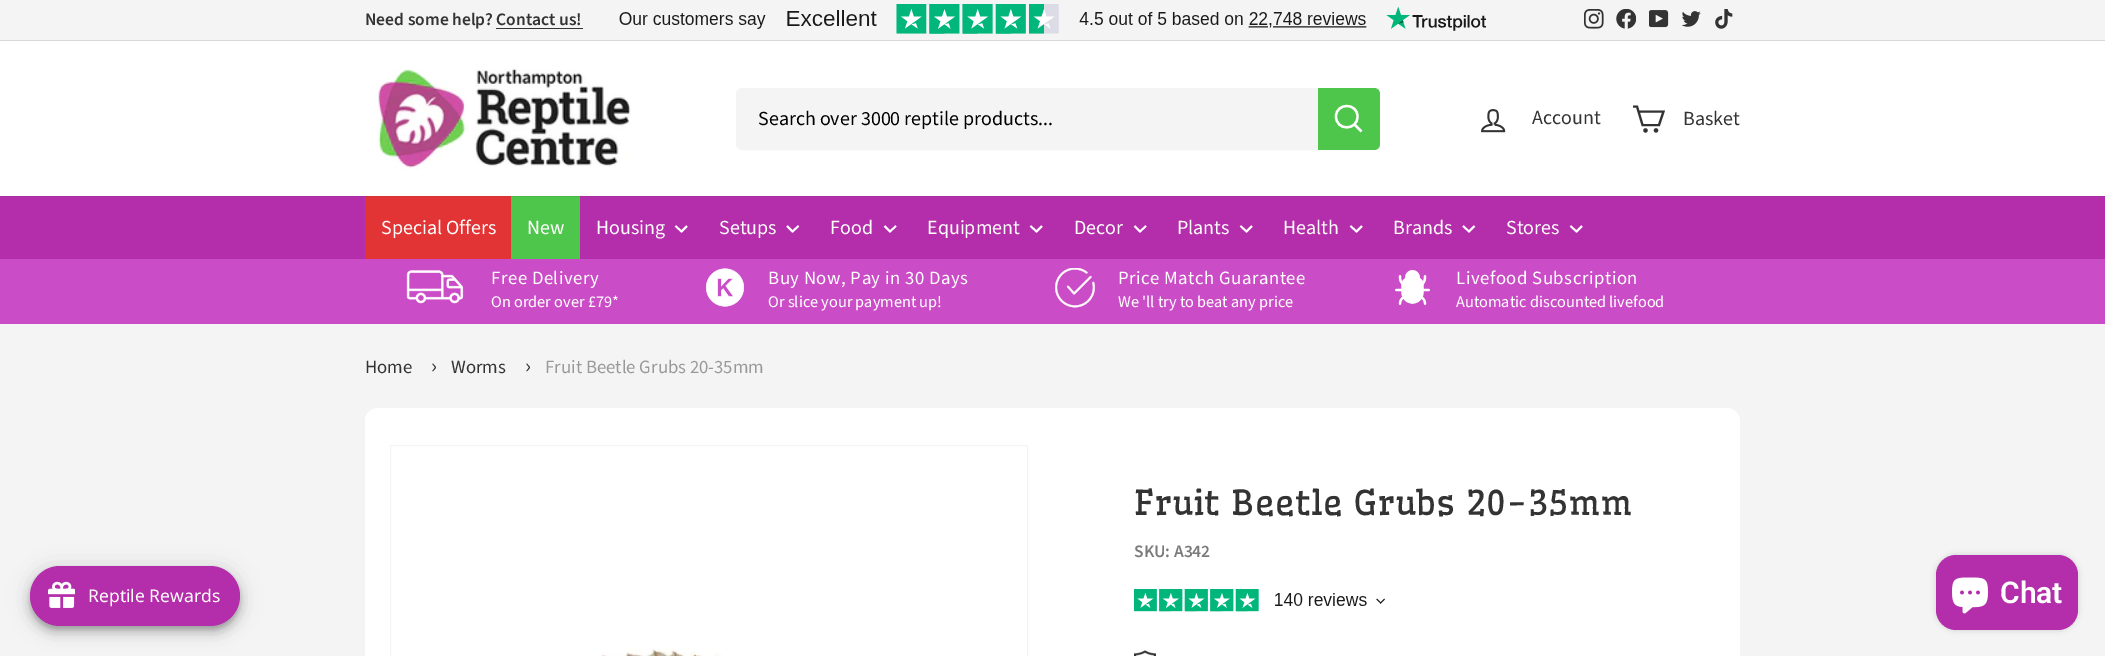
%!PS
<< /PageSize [2105 656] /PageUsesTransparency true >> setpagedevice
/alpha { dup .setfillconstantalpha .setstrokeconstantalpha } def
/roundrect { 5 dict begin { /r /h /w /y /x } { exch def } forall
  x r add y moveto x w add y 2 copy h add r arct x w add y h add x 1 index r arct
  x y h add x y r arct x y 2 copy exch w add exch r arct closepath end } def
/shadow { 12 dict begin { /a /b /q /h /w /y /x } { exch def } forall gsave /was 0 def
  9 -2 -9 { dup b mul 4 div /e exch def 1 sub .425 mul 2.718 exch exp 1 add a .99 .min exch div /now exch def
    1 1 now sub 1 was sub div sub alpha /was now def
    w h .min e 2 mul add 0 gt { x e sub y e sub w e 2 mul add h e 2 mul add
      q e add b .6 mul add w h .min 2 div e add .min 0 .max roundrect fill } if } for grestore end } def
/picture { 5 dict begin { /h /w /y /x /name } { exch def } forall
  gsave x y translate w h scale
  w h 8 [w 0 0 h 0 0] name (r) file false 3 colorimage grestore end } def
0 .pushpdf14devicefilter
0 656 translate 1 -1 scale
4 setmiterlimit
0.957 setgray
0 0 2105 656 rectfill
/SourceSansPro-SemiBold [17.5 0 0 -17.5 0 0] selectfont
0.2 setgray
365 25 moveto (Need some help? Contact us!) show
496 28 87 1 rectfill
(img1.rgb) 619 4 868 30 picture
(img2.rgb) 1584 9 20 20 picture
(img3.rgb) 1616 9 20 20 picture
(img4.rgb) 1649 10 20 18 picture
(img5.rgb) 1681 11 20 16 picture
(img6.rgb) 1715 9 18 20 picture
0.843 setgray
0 40 2105 1 rectfill
1 setgray
0 41 2105 155 rectfill
(img7.rgb) 375 68 256 102 picture
0.957 setgray
736.5 88.5 643 61 5.5 roundrect gsave fill grestore
stroke
/SourceSansPro-Regular [20 0 0 -20 0 0] selectfont
0 setgray
758 125 moveto (Search over 3000 reptile products...) show
0.306 0.773 0.294 setrgbcolor
newpath 1318 88 moveto 1374 88 lineto 1377.5 88 1380 90.5 1380 94 curveto 1380 144 lineto 1380 147.5 1377.5 150 1374 150 curveto 1318 150 lineto closepath fill
1 setgray
2.3 setlinewidth
newpath 1357.5 116.5 moveto 1357.5 131 1336 131 1336 116.5 curveto 1336 102.5 1357.5 102.5 1357.5 116.5 curveto closepath 1361.5 131.5 moveto 1354.5 124.5 lineto stroke
(img8.rgb) 1481 109 25 24 picture
0.2 setgray
1532 124 moveto (Account) show
2.1 setlinewidth
newpath 1638.5 111.5 moveto 1663.5 111.5 lineto 1659 125 lineto 1642.5 125 lineto 1637 106.5 lineto 1633 106.5 lineto stroke
newpath 1645.5 130.4 1.1 0 360 arc closepath stroke
newpath 1656 130.4 1.1 0 360 arc closepath stroke
1683 125 moveto (Basket) show
0.706 0.176 0.667 setrgbcolor
0 197 2105 62 rectfill
0.655 0.18 0.62 setrgbcolor
0 196 2105 1 rectfill
0.886 0.204 0.204 setrgbcolor
365 197 146 62 rectfill
0.82 0.204 0.204 setrgbcolor
365 196 146 1 rectfill
1 setgray
381 234 moveto (Special Offers) show
0.306 0.773 0.294 setrgbcolor
511 197 69 62 rectfill
0.294 0.714 0.286 setrgbcolor
511 196 69 1 rectfill
1 setgray
527 234 moveto (New) show
596 234 moveto (Housing) show
1.8 setlinewidth
newpath 675.5 226 moveto 681.5 231.5 lineto 687 226 lineto stroke
719 234 moveto (Setups) show
newpath 787 226 moveto 792.5 231.5 lineto 798.5 226 lineto stroke
830 234 moveto (Food) show
newpath 884.5 226 moveto 890 231.5 lineto 896 226 lineto stroke
927 234 moveto (Equipment) show
newpath 1030.5 226 moveto 1036.5 231.5 lineto 1042 226 lineto stroke
1074 234 moveto (Decor) show
newpath 1134.5 226 moveto 1140 231.5 lineto 1146 226 lineto stroke
1177 234 moveto (Plants) show
newpath 1240.5 226 moveto 1246.5 231.5 lineto 1252 226 lineto stroke
1283 234 moveto (Health) show
newpath 1350.5 226 moveto 1356.5 231.5 lineto 1362 226 lineto stroke
1393 234 moveto (Brands) show
newpath 1463 226 moveto 1469 231.5 lineto 1474.5 226 lineto stroke
1506 234 moveto (Stores) show
newpath 1570.5 226 moveto 1576.5 231.5 lineto 1582 226 lineto stroke
0.792 0.298 0.776 setrgbcolor
0 259 2105 65 rectfill
(img9.rgb) 406 270 58 34 picture
/SourceSansPro-Regular [18.75 0 0 -18.75 0 0] selectfont
1 setgray
491 284 moveto 0.5 0 (Free Delivery) ashow
/SourceSansPro-Regular [16.25 0 0 -16.25 0 0] selectfont
491 307 moveto (On order over £79*) show
(img10.rgb) 705 268 40 39 picture
/SourceSansPro-Regular [18.75 0 0 -18.75 0 0] selectfont
768 284 moveto 0.5 0 (Buy Now, Pay in 30 Days) ashow
/SourceSansPro-Regular [16.25 0 0 -16.25 0 0] selectfont
768 307 moveto (Or slice your payment up!) show
(img11.rgb) 1055 268 40 40 picture
/SourceSansPro-Regular [18.75 0 0 -18.75 0 0] selectfont
1118 284 moveto 0.5 0 (Price Match Guarantee) ashow
/SourceSansPro-Regular [16.25 0 0 -16.25 0 0] selectfont
1118 307 moveto (We 'll try to beat any price) show
(img12.rgb) 1395 270 35 35 picture
/SourceSansPro-Regular [18.75 0 0 -18.75 0 0] selectfont
1456 284 moveto 0.5 0 (Livefood Subscription) ashow
/SourceSansPro-Regular [16.25 0 0 -16.25 0 0] selectfont
1456 307 moveto (Automatic discounted livefood) show
/SourceSansPro-Regular [18.75 0 0 -18.75 0 0] selectfont
0.2 setgray
365 373 moveto (Home) show
/SourceSansPro-Regular [22 0 0 -22 0 0] selectfont
431 373 moveto (›) show
/SourceSansPro-Regular [18.75 0 0 -18.75 0 0] selectfont
451 373 moveto (Worms) show
/SourceSansPro-Regular [22 0 0 -22 0 0] selectfont
525 373 moveto (›) show
/SourceSansPro-Regular [18.75 0 0 -18.75 0 0] selectfont
0.6 setgray
545 373 moveto (Fruit Beetle Grubs 20-35mm) show
1 setgray
365 408 1375 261 13 roundrect fill
0.957 setgray
1 setlinewidth
390.5 445.5 637 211 rectstroke
(img13.rgb) 601 648 121 8 picture
/Wellfleet-Regular [34 0 0 -34 0 0] selectfont
0.2 setgray
1134 515 moveto 0.85 0 (Fruit Beetle Grubs 20-35mm) ashow
/SourceSansPro-SemiBold [17.5 0 0 -17.5 0 0] selectfont
0.478 setgray
1134 557 moveto (SKU: A342) show
(img14.rgb) 1134 589 251 23 picture
(img15.rgb) 1134 650 22 6 picture
0 setgray
30 568 210 60 30 11 0.12 shadow
30 574 210 60 30 6 0.14 shadow
31 571 208 58 29 3 0.2 shadow
0.706 0.176 0.667 setrgbcolor
30 566 210 60 30 roundrect fill
(img16.rgb) 48 581 27 27 picture
/NotoSans-Regular [17.5 0 0 -17.5 0 0] selectfont
1 setgray
88 602 moveto (Reptile Rewards) show
0 setgray
1936 555 142 75 20 3 0.15 shadow
0.706 0.176 0.667 setrgbcolor
1936 555 142 75 20 roundrect fill
(img17.rgb) 1952 577 36 37 picture
/Roboto-SemiBold [30 0 0 -30 0 0] selectfont
1 setgray
2000 603 moveto (Chat) show
.poppdf14devicefilter showpage
